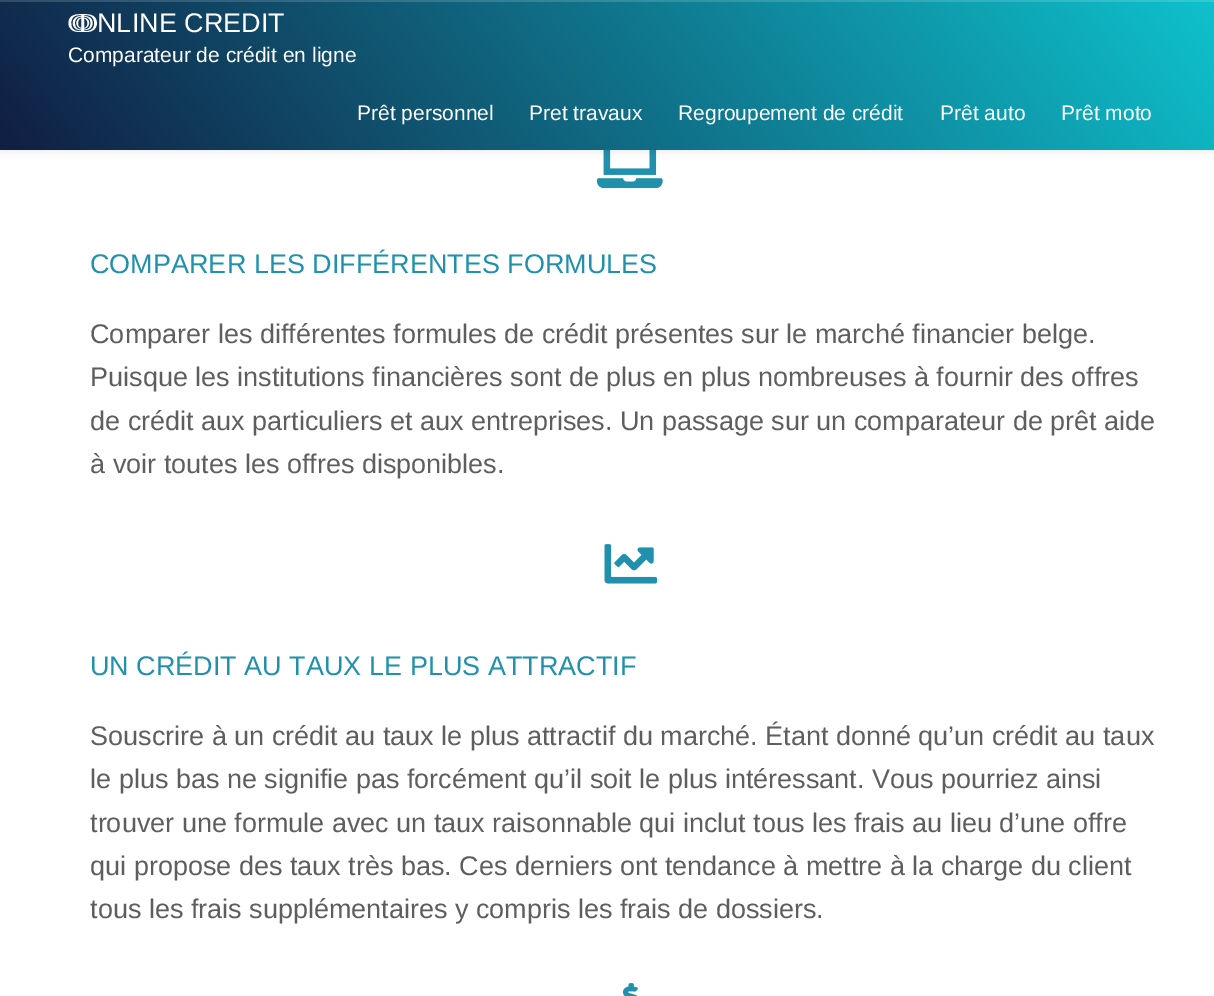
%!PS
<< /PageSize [1214 996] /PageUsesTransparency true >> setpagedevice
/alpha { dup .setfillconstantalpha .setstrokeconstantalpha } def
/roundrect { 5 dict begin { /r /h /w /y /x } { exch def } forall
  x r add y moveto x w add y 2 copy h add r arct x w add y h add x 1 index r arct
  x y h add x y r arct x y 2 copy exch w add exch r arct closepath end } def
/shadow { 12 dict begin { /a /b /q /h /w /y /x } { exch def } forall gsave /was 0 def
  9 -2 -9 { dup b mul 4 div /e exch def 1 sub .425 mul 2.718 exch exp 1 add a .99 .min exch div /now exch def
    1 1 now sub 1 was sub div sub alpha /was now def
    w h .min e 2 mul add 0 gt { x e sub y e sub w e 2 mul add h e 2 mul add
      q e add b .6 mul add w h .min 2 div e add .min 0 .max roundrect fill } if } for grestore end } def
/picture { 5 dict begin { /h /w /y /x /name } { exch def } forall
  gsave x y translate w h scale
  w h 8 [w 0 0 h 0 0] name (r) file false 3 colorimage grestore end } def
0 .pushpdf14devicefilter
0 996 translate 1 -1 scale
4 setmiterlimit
1 setgray
0 0 1214 996 rectfill
(img1.rgb) 597 150 66 39 picture
0 setgray
0 2 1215 150 0 4 0.07 shadow
gsave newpath 0 0 moveto 1214 0 lineto 1214 150 lineto 0 150 lineto closepath clip newpath
<< /ShadingType 2 /ColorSpace /DeviceRGB /Coords [1041 -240 174 390] /Extend [true true] /Function << /FunctionType 2 /Domain [0 1] /C0 [0.055 0.757 0.8] /C1 [0.067 0.118 0.263] /N 1 >> >> shfill grestore
0.15 alpha
1 setgray
0 0 1214 2 rectfill
/FreeSerif-Regular [27 0 0 -27 0 0] selectfont
1 alpha
68 32 moveto (ↈ) show
/LiberationSans-Regular [27 0 0 -27 0 0] selectfont
97 32 moveto (NLINE CREDIT) show
/LiberationSans-Regular [21 0 0 -21 0 0] selectfont
68 62 moveto (Comparateur de crédit en ligne) show
357 120 moveto (Prêt personnel) show
529 120 moveto (Pret travaux) show
678 120 moveto (Regroupement de crédit) show
940 120 moveto (Prêt auto) show
1061 120 moveto (Prêt moto) show
/LiberationSans-Regular [27 0 0 -27 0 0] selectfont
0.129 0.565 0.675 setrgbcolor
90 273 moveto (COMPARER LES DIFFÉRENTES FORMULES) show
0.373 0.369 0.369 setrgbcolor
90 343 moveto (Comparer les différentes formules de crédit présentes sur le marché financier belge.) show
90 386 moveto (Puisque les institutions financières sont de plus en plus nombreuses à fournir des offres) show
90 430 moveto (de crédit aux particuliers et aux entreprises. Un passage sur un comparateur de prêt aide) show
90 473 moveto (à voir toutes les offres disponibles.) show
(img2.rgb) 604 544 53 40 picture
0.129 0.565 0.675 setrgbcolor
90 675 moveto (UN CRÉDIT AU TAUX LE PLUS ATTRACTIF) show
0.373 0.369 0.369 setrgbcolor
90 745 moveto (Souscrire à un crédit au taux le plus attractif du marché. Étant donné qu’un crédit au taux) show
90 788 moveto (le plus bas ne signifie pas forcément qu’il soit le plus intéressant. Vous pourriez ainsi) show
90 832 moveto (trouver une formule avec un taux raisonnable qui inclut tous les frais au lieu d’une offre) show
90 875 moveto (qui propose des taux très bas. Ces derniers ont tendance à mettre à la charge du client) show
90 918 moveto (tous les frais supplémentaires y compris les frais de dossiers.) show
(img3.rgb) 622 983 16 13 picture
.poppdf14devicefilter showpage
